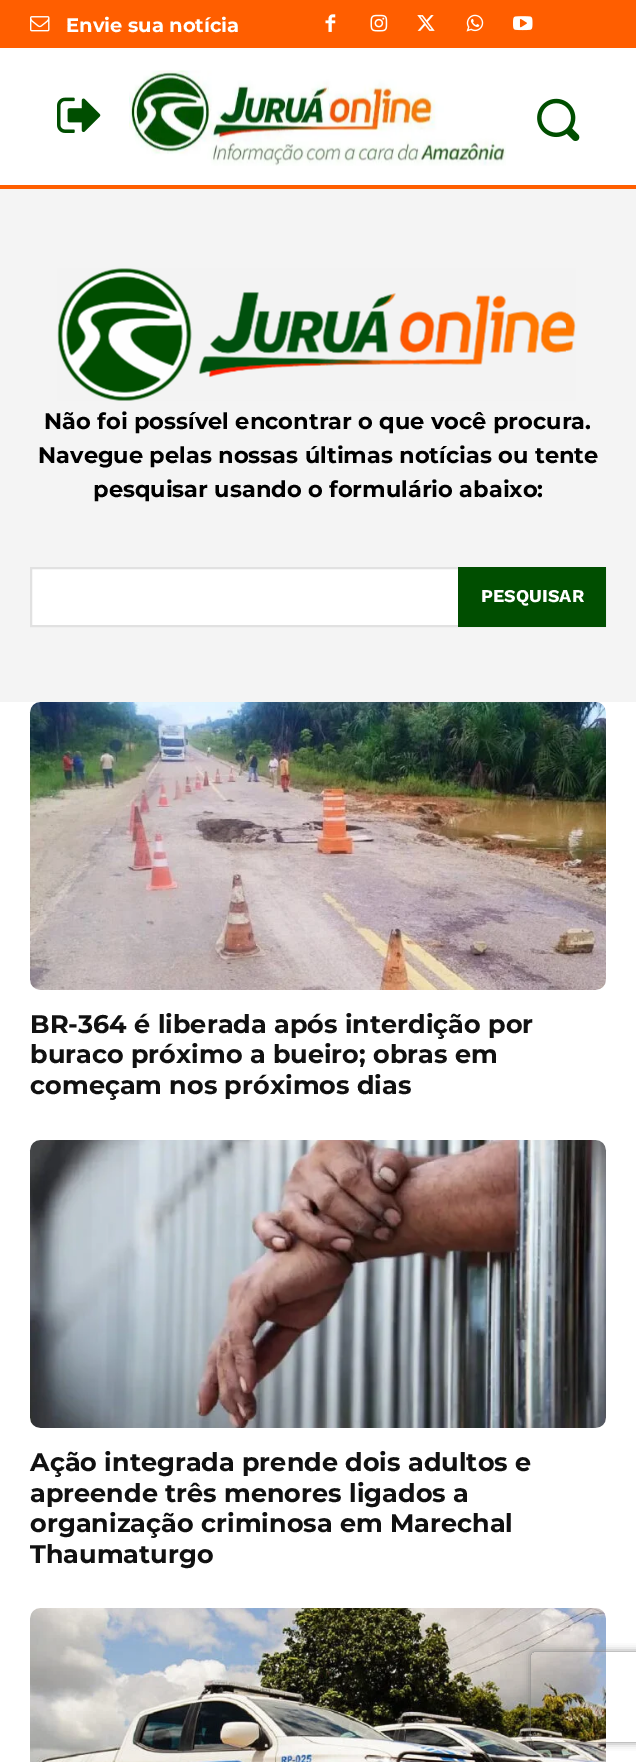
%!PS
<< /PageSize [636 1762] /PageUsesTransparency true >> setpagedevice
/alpha { dup .setfillconstantalpha .setstrokeconstantalpha } def
/roundrect { 5 dict begin { /r /h /w /y /x } { exch def } forall
  x r add y moveto x w add y 2 copy h add r arct x w add y h add x 1 index r arct
  x y h add x y r arct x y 2 copy exch w add exch r arct closepath end } def
/shadow { 12 dict begin { /a /b /q /h /w /y /x } { exch def } forall gsave /was 0 def
  9 -2 -9 { dup b mul 4 div /e exch def 1 sub .425 mul 2.718 exch exp 1 add a .99 .min exch div /now exch def
    1 1 now sub 1 was sub div sub alpha /was now def
    w h .min e 2 mul add 0 gt { x e sub y e sub w e 2 mul add h e 2 mul add
      q e add b .6 mul add w h .min 2 div e add .min 0 .max roundrect fill } if } for grestore end } def
/picture { 5 dict begin { /h /w /y /x /name } { exch def } forall
  gsave x y translate w h scale
  w h 8 [w 0 0 h 0 0] name (r) file false 3 colorimage grestore end } def
0 .pushpdf14devicefilter
0 1762 translate 1 -1 scale
4 setmiterlimit
1 setgray
0 0 636 1762 rectfill
1 0.369 0 setrgbcolor
0 0 636 48 rectfill
(img1.rgb) 30 16 20 16 picture
/Montserrat-Bold [19.5 0 0 -19.5 0 0] selectfont
1 setgray
66 32 moveto (Envie sua notícia) show
(img2.rgb) 325 14 11 18 picture
(img3.rgb) 370 14 18 18 picture
(img4.rgb) 417 15 18 16 picture
(img5.rgb) 466 14 18 18 picture
(img6.rgb) 513 16 20 15 picture
(img7.rgb) 57 97 44 36 picture
(img8.rgb) 129 70 377 96 picture
(img9.rgb) 537 98 43 43 picture
1 0.369 0 setrgbcolor
0 185 636 4 rectfill
0.957 setgray
0 189 636 513 rectfill
(img10.rgb) 57 268 519 133 picture
/Montserrat-Bold [22.5 0 0 -22.5 0 0] selectfont
0 setgray
44 429 moveto (Não foi possível encontrar o que você procura.) show
38 463 moveto (Navegue pelas nossas últimas notícias ou tente) show
93 497 moveto (pesquisar usando o formulário abaixo:) show
1 setgray
32 569 426 56 rectfill
0.882 setgray
2 setlinewidth
31 568 574 58 rectstroke
0 0.306 0 setrgbcolor
458 567 148 60 rectfill
/WorkSans-Bold [18 0 0 -18 0 0] selectfont
1 setgray
481 602 moveto (PESQUISAR) show
(img11.rgb) 29 702 577 288 picture
/Montserrat-Bold [25.5 0 0 -25.5 0 0] selectfont
0.067 setgray
30 1033 moveto (BR-364 é liberada após interdição por) show
30 1063 moveto (buraco próximo a bueiro; obras em) show
30 1094 moveto (começam nos próximos dias) show
(img12.rgb) 29 1140 578 288 picture
30 1471 moveto (Ação integrada prende dois adultos e) show
30 1502 moveto (apreende três menores ligados a) show
30 1532 moveto (organização criminosa em Marechal) show
30 1563 moveto (Thaumaturgo) show
(img13.rgb) 30 1608 576 154 picture
gsave
newpath 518 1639 moveto 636 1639 lineto 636 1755 lineto 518 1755 lineto closepath 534 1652 moveto 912 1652 lineto 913.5 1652 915 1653.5 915 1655 curveto 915 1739 lineto 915 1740.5 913.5 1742 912 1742 curveto 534 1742 lineto 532.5 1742 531 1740.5 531 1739 curveto 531 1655 lineto 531 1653.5 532.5 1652 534 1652 curveto closepath eoclip newpath
0.502 setgray
531 1652 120 90 3 4 1 shadow
grestore
.poppdf14devicefilter showpage
